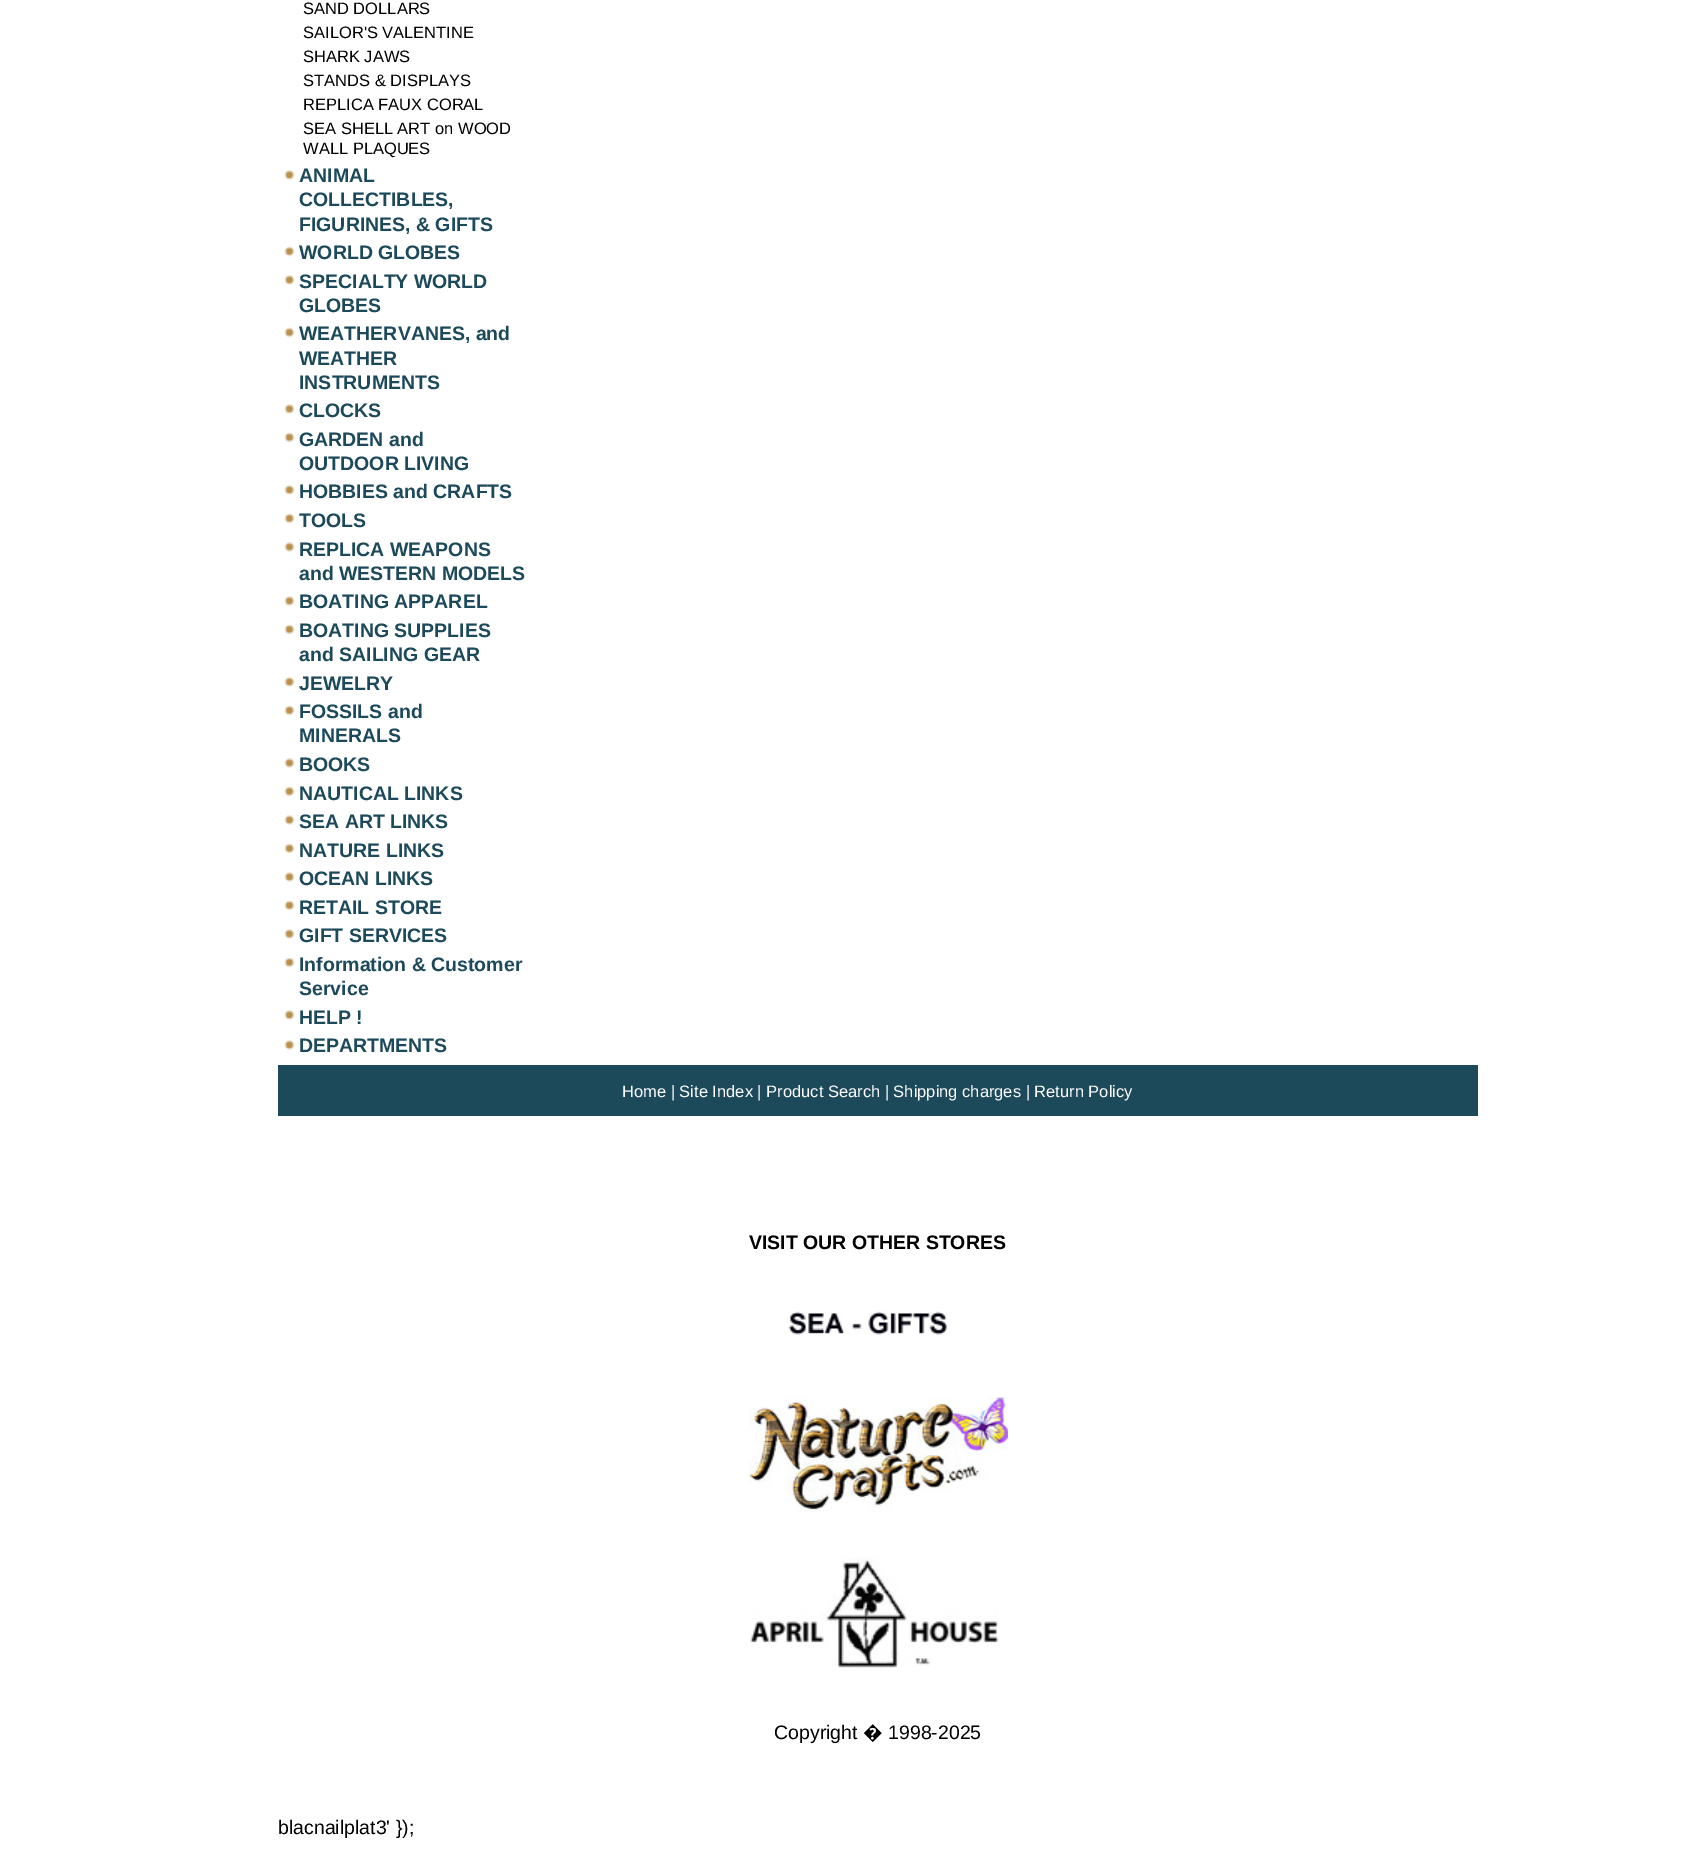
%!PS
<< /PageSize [1695 1863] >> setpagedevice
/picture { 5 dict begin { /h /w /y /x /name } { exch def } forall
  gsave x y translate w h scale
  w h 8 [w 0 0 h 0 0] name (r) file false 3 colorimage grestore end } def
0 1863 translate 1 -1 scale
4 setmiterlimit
1 setgray
0 0 1695 1863 rectfill
/LiberationSans-Regular [16.5 0 0 -16.5 0 0] selectfont
0 setgray
303 14 moveto (SAND DOLLARS) show
303 38 moveto (SAILOR'S VALENTINE) show
303 62 moveto (SHARK JAWS) show
303 86 moveto (STANDS & DISPLAYS) show
303 110 moveto (REPLICA FAUX CORAL) show
303 134 moveto (SEA SHELL ART on WOOD) show
303 154 moveto (WALL PLAQUES) show
(img1.rgb) 284 170 11 10 picture
/LiberationSans-Bold [19.5 0 0 -19.5 0 0] selectfont
0.114 0.29 0.357 setrgbcolor
299 182 moveto (ANIMAL) show
299 206 moveto (COLLECTIBLES,) show
299 231 moveto (FIGURINES, & GIFTS) show
(img2.rgb) 284 246 11 11 picture
299 259 moveto (WORLD GLOBES) show
(img1.rgb) 284 275 11 10 picture
299 288 moveto (SPECIALTY WORLD) show
299 312 moveto (GLOBES) show
(img2.rgb) 284 327 11 11 picture
299 340 moveto (WEATHERVANES, and) show
299 365 moveto (WEATHER) show
299 389 moveto (INSTRUMENTS) show
(img1.rgb) 284 404 11 10 picture
299 417 moveto (CLOCKS) show
(img2.rgb) 284 432 11 11 picture
299 446 moveto (GARDEN and) show
299 470 moveto (OUTDOOR LIVING) show
(img1.rgb) 284 485 11 10 picture
299 498 moveto (HOBBIES and CRAFTS) show
(img2.rgb) 284 513 11 11 picture
299 527 moveto (TOOLS) show
(img1.rgb) 284 542 11 10 picture
299 556 moveto (REPLICA WEAPONS) show
299 580 moveto (and WESTERN MODELS) show
(img1.rgb) 284 596 11 10 picture
299 608 moveto (BOATING APPAREL) show
(img2.rgb) 284 624 11 11 picture
299 637 moveto (BOATING SUPPLIES) show
299 661 moveto (and SAILING GEAR) show
(img1.rgb) 284 677 11 10 picture
299 690 moveto (JEWELRY) show
(img2.rgb) 284 705 11 11 picture
299 718 moveto (FOSSILS and) show
299 742 moveto (MINERALS) show
(img1.rgb) 284 758 11 10 picture
299 771 moveto (BOOKS) show
(img2.rgb) 284 786 11 11 picture
299 800 moveto (NAUTICAL LINKS) show
(img1.rgb) 284 815 11 10 picture
299 828 moveto (SEA ART LINKS) show
(img2.rgb) 284 843 11 11 picture
299 857 moveto (NATURE LINKS) show
(img1.rgb) 284 872 11 10 picture
299 885 moveto (OCEAN LINKS) show
(img2.rgb) 284 900 11 11 picture
299 914 moveto (RETAIL STORE) show
(img1.rgb) 284 929 11 10 picture
299 942 moveto (GIFT SERVICES) show
(img2.rgb) 284 957 11 11 picture
299 971 moveto (Information & Customer) show
299 995 moveto (Service) show
(img1.rgb) 284 1010 11 10 picture
299 1024 moveto (HELP !) show
(img1.rgb) 284 1040 11 10 picture
299 1052 moveto (DEPARTMENTS) show
278 1065 1200 51 rectfill
/LiberationSans-Regular [16.5 0 0 -16.5 0 0] selectfont
1 setgray
622 1097 moveto (Home | Site Index | Product Search | Shipping charges | Return Policy) show
/LiberationSans-Bold [19.5 0 0 -19.5 0 0] selectfont
0 setgray
749 1249 moveto (VISIT OUR OTHER STORES) show
(img3.rgb) 788 1311 159 24 picture
(img4.rgb) 748 1397 260 115 picture
(img5.rgb) 750 1557 249 111 picture
/LiberationSans-Regular [19.5 0 0 -19.5 0 0] selectfont
774 1739 moveto (Copyright) show
/NotoSans-Regular [19.5 0 0 -19.5 0 0] selectfont
863 1739 moveto (�) show
/LiberationSans-Regular [19.5 0 0 -19.5 0 0] selectfont
888 1739 moveto (1998-2025) show
278 1834 moveto (blacnailplat3' }\);) show
showpage
